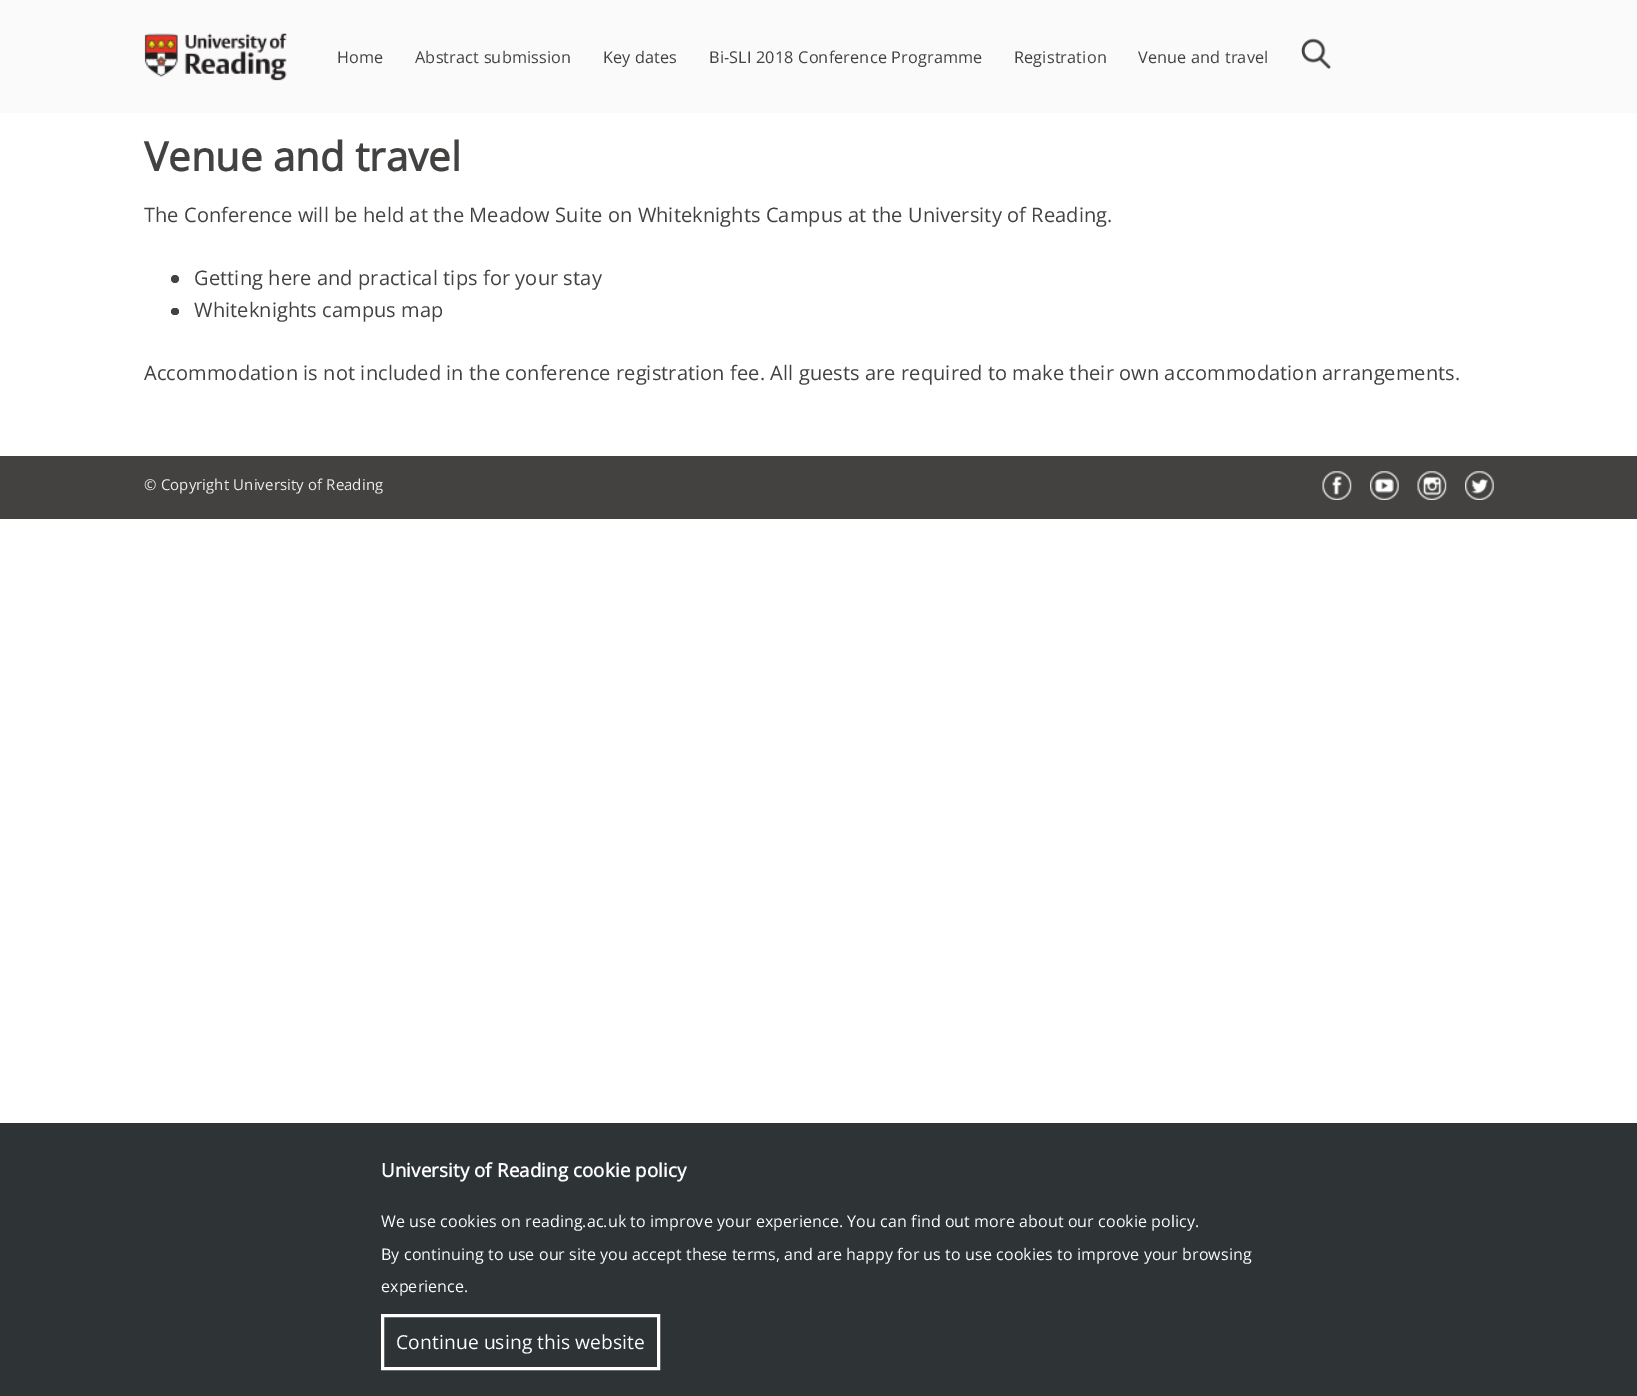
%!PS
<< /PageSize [1637 1396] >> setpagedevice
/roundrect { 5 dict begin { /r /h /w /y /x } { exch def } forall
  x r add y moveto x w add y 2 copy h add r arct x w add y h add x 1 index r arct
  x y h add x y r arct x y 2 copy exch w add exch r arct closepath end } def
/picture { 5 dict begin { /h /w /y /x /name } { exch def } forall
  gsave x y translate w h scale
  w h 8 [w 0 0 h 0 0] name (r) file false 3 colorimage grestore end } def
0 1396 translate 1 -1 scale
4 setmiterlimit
1 setgray
0 0 1637 1396 rectfill
0.984 0.98 0.98 setrgbcolor
0 0 1637 113 rectfill
(img1.rgb) 144 33 143 48 picture
/OpenSans-Regular [16.25 0 0 -16.25 0 0] selectfont
0.263 0.259 0.255 setrgbcolor
337 63 moveto 0.15 0 (Home) ashow
415 63 moveto 0.15 0 (Abstract submission) ashow
603 63 moveto 0.15 0 (Key dates) ashow
709 63 moveto 0.15 0 (Bi-SLI 2018 Conference Programme) ashow
1014 63 moveto 0.15 0 (Registration) ashow
1138 63 moveto 0.15 0 (Venue and travel) ashow
(img2.rgb) 1301 38 30 31 picture
/OpenSans-Bold [40 0 0 -40 0 0] selectfont
144 171 moveto 0.1 0 (Venue and travel) ashow
/OpenSans-Regular [20 0 0 -20 0 0] selectfont
144 222 moveto 0.1 0 (The Conference will be held at the Meadow Suite on Whiteknights Campus at the University of Reading.) ashow
newpath 175 279 4 0 360 arc closepath fill
194 285 moveto 0.1 0 (Getting here and practical tips for your stay) ashow
171 308 8 7 3.5 roundrect fill
194 317 moveto 0.1 0 (Whiteknights campus map) ashow
144 380 moveto 0.1 0 (Accommodation is not included in the conference registration fee. All guests are required to make their own accommodation arrangements.) ashow
0 456 1637 63 rectfill
/OpenSans-Regular [15 0 0 -15 0 0] selectfont
0.933 setgray
144 490 moveto 0.1 0 (© Copyright University of Reading) ashow
(img3.rgb) 1322 471 30 29 picture
(img4.rgb) 1370 471 29 29 picture
(img5.rgb) 1417 471 30 29 picture
(img6.rgb) 1465 471 29 29 picture
0.18 0.2 0.212 setrgbcolor
0 1123 1637 273 rectfill
/OpenSans-Bold [18.75 0 0 -18.75 0 0] selectfont
1 setgray
381 1177 moveto 0.1 0 (University of Reading cookie policy) ashow
/OpenSans-Regular [16 0 0 -16 0 0] selectfont
381 1227 moveto 0.1 0 (We use cookies on reading.ac.uk to improve your experience. You can find out more about our cookie policy.) ashow
381 1260 moveto 0.1 0 (By continuing to use our site you accept these terms, and are happy for us to use cookies to improve your browsing) ashow
381 1292 moveto 0.1 0 (experience.) ashow
3 setlinewidth
382.5 1315.5 276 53 rectstroke
/OpenSans-Regular [19.25 0 0 -19.25 0 0] selectfont
396 1349 moveto 0.1 0 (Continue using this website) ashow
showpage
